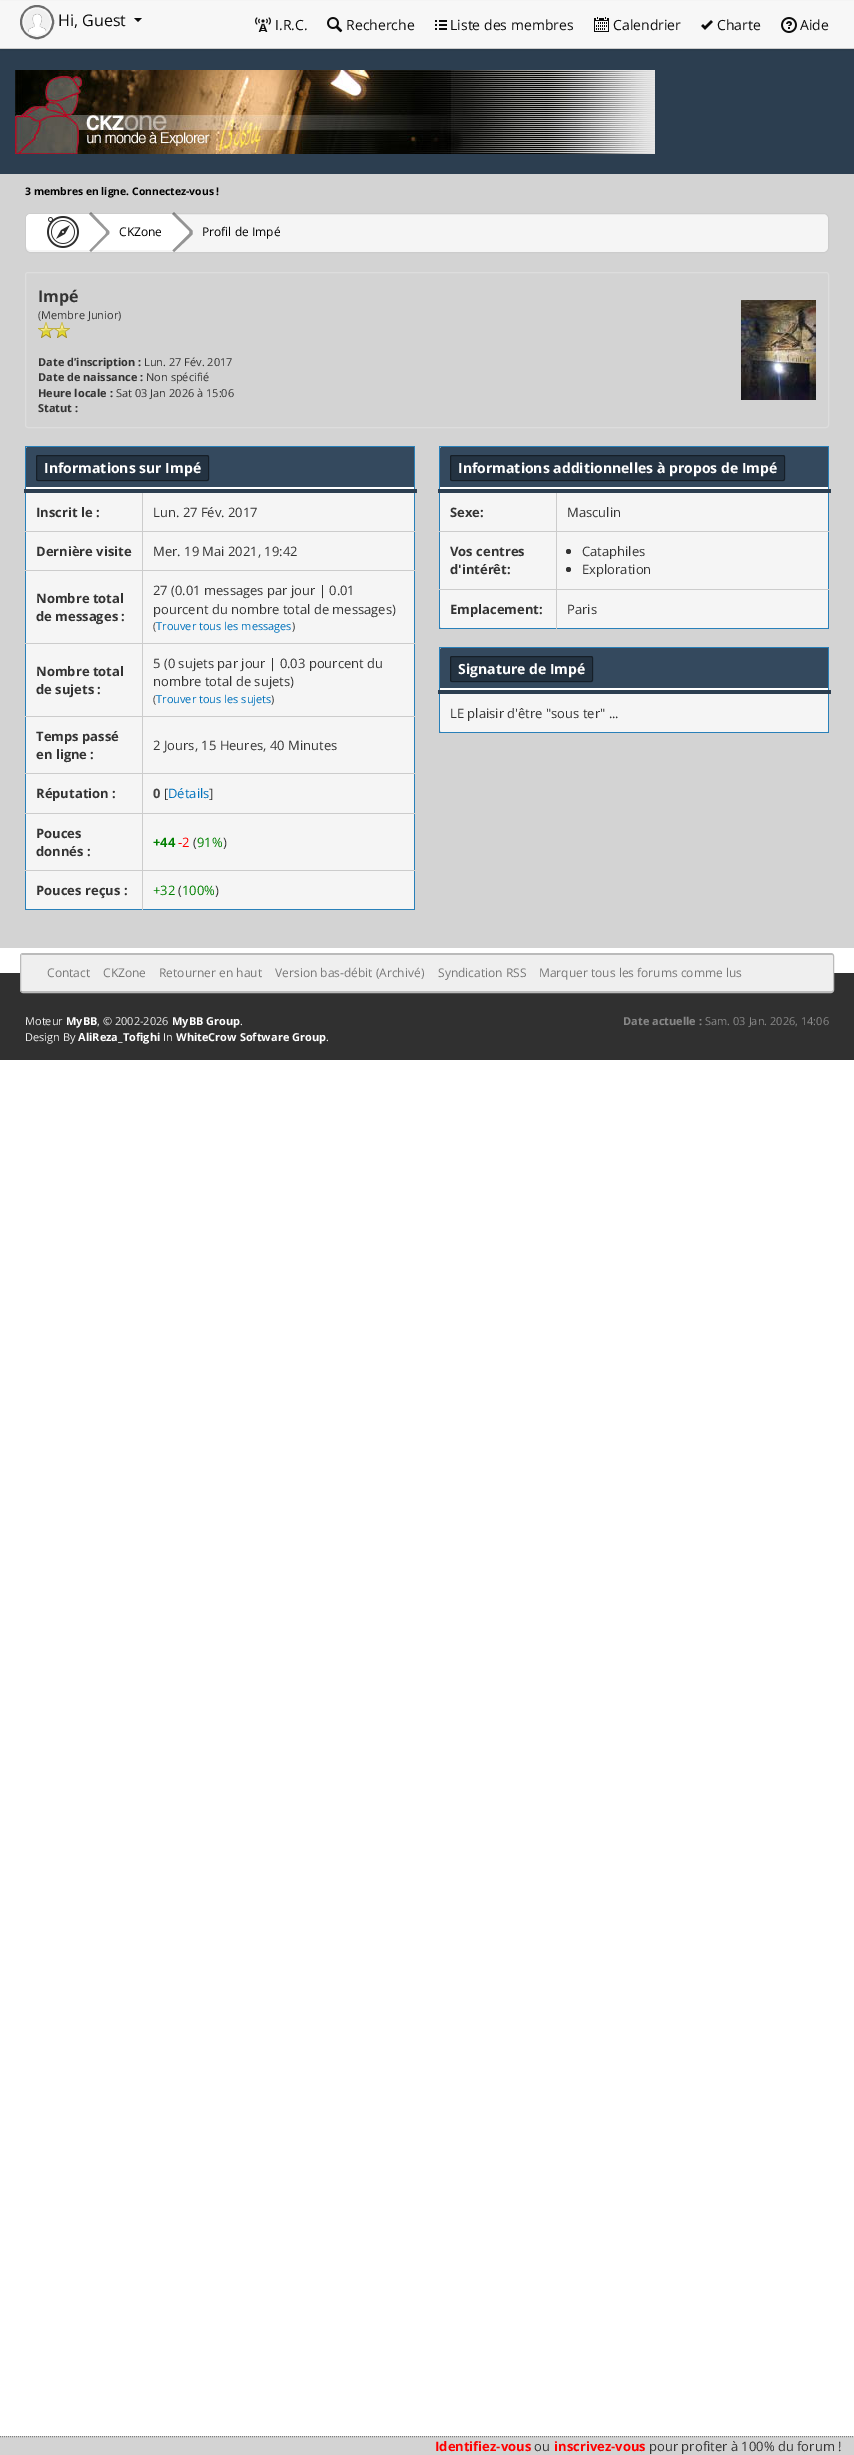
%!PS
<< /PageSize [854 2455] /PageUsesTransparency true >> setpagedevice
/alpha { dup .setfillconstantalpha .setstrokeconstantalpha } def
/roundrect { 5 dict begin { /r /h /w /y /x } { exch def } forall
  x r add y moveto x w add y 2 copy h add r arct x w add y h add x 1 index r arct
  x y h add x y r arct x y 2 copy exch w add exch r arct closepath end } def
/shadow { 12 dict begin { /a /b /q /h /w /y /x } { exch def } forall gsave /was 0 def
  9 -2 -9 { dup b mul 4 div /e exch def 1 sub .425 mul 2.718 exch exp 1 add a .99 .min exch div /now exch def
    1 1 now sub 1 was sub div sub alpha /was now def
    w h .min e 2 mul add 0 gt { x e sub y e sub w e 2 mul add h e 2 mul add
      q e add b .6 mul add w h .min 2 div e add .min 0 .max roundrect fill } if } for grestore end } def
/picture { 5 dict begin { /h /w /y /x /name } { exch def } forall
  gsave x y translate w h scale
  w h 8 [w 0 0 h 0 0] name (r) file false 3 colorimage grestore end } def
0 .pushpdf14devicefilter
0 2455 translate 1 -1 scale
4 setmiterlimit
1 setgray
0 0 854 2455 rectfill
0.173 0.243 0.314 setrgbcolor
0 49 854 125 rectfill
0 setgray
0 1 854 49 0 1.5 0.1 shadow
0.969 setgray
0 1 854 47 rectfill
0.8 setgray
0 48 854 1 rectfill
0.427 setgray
2 setlinewidth
newpath 37 22 16 0 360 arc closepath stroke
(img1.rgb) 24 9 26 26 picture
/OpenSans-Regular [16 0 0 -16 0 0] selectfont
0.051 setgray
58 26 moveto (Hi, Guest) show
newpath 134 18 moveto 142 18 lineto 138 22 lineto closepath fill
(img2.rgb) 255 17 16 15 picture
/OpenSans-Regular [14 0 0 -14 0 0] selectfont
275 30 moveto (I.R.C.) show
(img3.rgb) 327 17 16 16 picture
346 30 moveto (Recherche) show
(img4.rgb) 435 20 12 10 picture
450 30 moveto (Liste des membres) show
(img5.rgb) 594 17 15 15 picture
613 30 moveto (Calendrier) show
(img6.rgb) 701 20 12 10 picture
717 30 moveto (Charte) show
(img7.rgb) 781 17 16 16 picture
800 30 moveto (Aide) show
(img8.rgb) 15 70 640 84 picture
0.827 setgray
0 174 854 774 rectfill
/OpenSans-Bold [10.4 0 0 -10.4 0 0] selectfont
0 setgray
25 195 moveto (3 membres en ligne. Connectez-vous !) show
0.961 setgray
25.5 213.5 803 39 4.5 roundrect gsave fill grestore
0.8 setgray
1 setlinewidth
stroke
1 setgray
newpath 31 214 moveto 89 214 lineto 89 250 lineto 31 250 lineto 28 250 26 248 26 245 curveto 26 219 lineto 26 216 28 214 31 214 curveto closepath fill
(img9.rgb) 47 216 32 32 picture
89 214 83 36 rectfill
0.1 alpha
newpath 92 212 moveto 90 215 lineto 105 231 lineto 106 232 106 233 105 234 curveto 90 250 lineto 92 252 lineto 109 235 lineto 110 234 110 231 109 230 curveto closepath fill
0.4 alpha
0 setgray
newpath 91 212 moveto 89 214 lineto 105 231 lineto 106 232 106 233 105 234 curveto 89 250 lineto 91 252 lineto 108 235 lineto 110 234 110 231 108 230 curveto closepath fill
1 alpha
1 setgray
newpath 89 214.5 moveto 105 230.5 lineto 106 231.5 106 233 105 234 curveto 89 250.5 lineto 79 240.5 79 224.5 89 214.5 curveto closepath fill
/OpenSans-Regular [12 0 0 -12 0 0] selectfont
0 setgray
119 236 moveto (CKZone) show
0.1 alpha
1 setgray
newpath 175 212 moveto 173 215 lineto 188 231 lineto 189 232 189 233 188 234 curveto 173 250 lineto 175 252 lineto 192 235 lineto 194 234 194 231 192 230 curveto closepath fill
0.4 alpha
0 setgray
newpath 174 212 moveto 172 214 lineto 188 231 lineto 189 232 189 233 188 234 curveto 172 250 lineto 174 252 lineto 192 235 lineto 193 234 193 231 192 230 curveto closepath fill
1 alpha
1 setgray
newpath 172 214.5 moveto 188.5 230.5 lineto 189.5 231.5 189.5 233 188.5 234 curveto 172 250.5 lineto 162 240.5 162 224.5 172 214.5 curveto closepath fill
0 setgray
202 236 moveto (Profil de Impé) show
0.867 setgray
25.5 272.5 803 155 2.5 roundrect stroke
/OpenSans-Bold [16 0 0 -16 0 0] selectfont
0.2 setgray
38 302 moveto (Impé) show
/OpenSans-Regular [11 0 0 -11 0 0] selectfont
38 319 moveto (\(Membre Junior\)) show
(img10.rgb) 38 322 16 16 picture
(img10.rgb) 54 322 16 16 picture
/OpenSans-Bold [11 0 0 -11 0 0] selectfont
38 366 moveto (Date d’inscription :) show
/OpenSans-Regular [11 0 0 -11 0 0] selectfont
144 366 moveto (Lun. 27 Fév. 2017) show
/OpenSans-Bold [11 0 0 -11 0 0] selectfont
38 381 moveto (Date de naissance :) show
/OpenSans-Regular [11 0 0 -11 0 0] selectfont
146 381 moveto (Non spécifié) show
/OpenSans-Bold [11 0 0 -11 0 0] selectfont
38 397 moveto (Heure locale :) show
/OpenSans-Regular [11 0 0 -11 0 0] selectfont
116 397 moveto (Sat 03 Jan 2026 à 15:06) show
/OpenSans-Bold [11 0 0 -11 0 0] selectfont
38 412 moveto (Statut :) show
(img11.rgb) 741 300 75 100 picture
1 setgray
25 446 390 464 7 roundrect fill
0.161 0.502 0.725 setrgbcolor
25 446 390 1 rectfill
0.204 0.286 0.369 setrgbcolor
newpath 28 447 moveto 413 447 lineto 414 447 415 448 415 449 curveto 415 487 lineto 26 487 lineto 26 449 lineto 26 448 27 447 28 447 curveto closepath fill
0.161 0.502 0.725 setrgbcolor
414 446 1 464 rectfill
0.961 setgray
newpath 26 870 moveto 142 870 lineto 142 910 lineto 29 910 lineto 27.5 910 26 908.5 26 907 curveto closepath fill
0.161 0.502 0.725 setrgbcolor
25 909 390 1 rectfill
25 446 1 464 rectfill
0.8 setgray
142 531 273 1 rectfill
142 570 273 1 rectfill
142 643 273 1 rectfill
142 716 273 1 rectfill
142 773 273 1 rectfill
142 813 273 1 rectfill
142 870 273 1 rectfill
142 870 1 40 rectfill
25 870 118 1 rectfill
142 813 1 58 rectfill
25 813 118 1 rectfill
142 773 1 41 rectfill
25 773 118 1 rectfill
142 716 1 58 rectfill
25 716 118 1 rectfill
142 643 1 74 rectfill
25 643 118 1 rectfill
142 570 1 74 rectfill
25 570 118 1 rectfill
142 531 1 40 rectfill
25 531 118 1 rectfill
142 491 1 41 rectfill
0.173 0.243 0.314 setrgbcolor
24 489 393 4 rectfill
0.141 0.2 0.259 setrgbcolor
36 455 173 26 2 roundrect fill
0.4 alpha
0 setgray
36.5 455.5 172 25 1.5 roundrect stroke
/OpenSans-Bold [14 0 0 -14 0 0] selectfont
1 alpha
1 setgray
44 473 moveto (Informations sur Impé) show
0.961 setgray
26 493 116 38 rectfill
/OpenSans-Bold [13 0 0 -13 0 0] selectfont
0.2 setgray
36 517 moveto (Inscrit le :) show
0.961 setgray
143 493 271 38 rectfill
/OpenSans-Regular [13 0 0 -13 0 0] selectfont
0.2 setgray
153 517 moveto (Lun. 27 Fév. 2017) show
0.961 setgray
26 532 116 38 rectfill
/OpenSans-Bold [13 0 0 -13 0 0] selectfont
0.2 setgray
36 556 moveto (Dernière visite) show
0.961 setgray
143 532 271 38 rectfill
/OpenSans-Regular [13 0 0 -13 0 0] selectfont
0.2 setgray
153 556 moveto (Mer. 19 Mai 2021, 19:42) show
0.961 setgray
26 571 116 72 rectfill
/OpenSans-Bold [13 0 0 -13 0 0] selectfont
0.2 setgray
36 603 moveto (Nombre total) show
36 621 moveto (de messages :) show
0.961 setgray
143 571 271 72 rectfill
/OpenSans-Regular [13 0 0 -13 0 0] selectfont
0.2 setgray
153 595 moveto (27 \(0.01 messages par jour | 0.01) show
153 614 moveto (pourcent du nombre total de messages\)) show
/OpenSans-Regular [11 0 0 -11 0 0] selectfont
153 630 moveto (\() show
0 0.447 0.737 setrgbcolor
156 630 moveto (Trouver tous les messages) show
0.2 setgray
292 630 moveto (\)) show
0.961 setgray
26 644 116 72 rectfill
/OpenSans-Bold [13 0 0 -13 0 0] selectfont
0.2 setgray
36 676 moveto (Nombre total) show
36 694 moveto (de sujets :) show
0.961 setgray
143 644 271 72 rectfill
/OpenSans-Regular [13 0 0 -13 0 0] selectfont
0.2 setgray
153 668 moveto (5 \(0 sujets par jour | 0.03 pourcent du) show
153 686 moveto (nombre total de sujets\)) show
/OpenSans-Regular [11 0 0 -11 0 0] selectfont
153 703 moveto (\() show
0 0.447 0.737 setrgbcolor
156 703 moveto (Trouver tous les sujets) show
0.2 setgray
271 703 moveto (\)) show
0.961 setgray
26 717 116 56 rectfill
/OpenSans-Bold [13 0 0 -13 0 0] selectfont
0.2 setgray
36 741 moveto (Temps passé) show
36 759 moveto (en ligne :) show
0.961 setgray
143 717 271 56 rectfill
/OpenSans-Regular [13 0 0 -13 0 0] selectfont
0.2 setgray
153 750 moveto (2 Jours, 15 Heures, 40 Minutes) show
0.961 setgray
26 774 116 39 rectfill
/OpenSans-Bold [13 0 0 -13 0 0] selectfont
0.2 setgray
36 798 moveto (Réputation :) show
0.961 setgray
143 774 271 39 rectfill
0.267 setgray
153 798 moveto (0) show
/OpenSans-Regular [13 0 0 -13 0 0] selectfont
0.2 setgray
164 798 moveto ([) show
0 0.447 0.737 setrgbcolor
168 798 moveto (Détails) show
0.2 setgray
209 798 moveto (]) show
0.961 setgray
26 814 116 56 rectfill
/OpenSans-Bold [13 0 0 -13 0 0] selectfont
0.2 setgray
36 838 moveto (Pouces) show
36 856 moveto (donnés :) show
0.961 setgray
143 814 271 56 rectfill
0 0.502 0 setrgbcolor
153 847 moveto (+44) show
/OpenSans-Regular [13 0 0 -13 0 0] selectfont
1 0 0 setrgbcolor
178 847 moveto (-2) show
0.2 setgray
193 847 moveto (\() show
0 0.502 0 setrgbcolor
197 847 moveto (91%) show
0.2 setgray
223 847 moveto (\)) show
/OpenSans-Bold [13 0 0 -13 0 0] selectfont
36 895 moveto (Pouces reçus :) show
0.961 setgray
143 871 271 38 rectfill
/OpenSans-Regular [13 0 0 -13 0 0] selectfont
0 0.502 0 setrgbcolor
153 895 moveto (+32) show
0.2 setgray
178 895 moveto (\() show
0 0.502 0 setrgbcolor
182 895 moveto (100%) show
0.2 setgray
215 895 moveto (\)) show
1 setgray
439 446 390 183 7 roundrect fill
0.161 0.502 0.725 setrgbcolor
439 446 390 1 rectfill
0.204 0.286 0.369 setrgbcolor
newpath 442 447 moveto 827 447 lineto 828 447 829 448 829 449 curveto 829 487 lineto 440 487 lineto 440 449 lineto 440 448 441 447 442 447 curveto closepath fill
0.961 setgray
newpath 556 589 moveto 829 589 lineto 829 625 lineto 829 626.5 827.5 628 826 628 curveto 556 628 lineto closepath fill
0.161 0.502 0.725 setrgbcolor
828 446 1 183 rectfill
439 628 390 1 rectfill
439 446 1 183 rectfill
0.8 setgray
556 531 273 1 rectfill
0.961 setgray
newpath 440 589 moveto 556 589 lineto 556 628 lineto 443 628 lineto 441.5 628 440 626.5 440 625 curveto closepath fill
0.8 setgray
556 589 273 1 rectfill
556 589 1 40 rectfill
439 589 118 1 rectfill
556 531 1 59 rectfill
439 531 118 1 rectfill
556 491 1 41 rectfill
0.173 0.243 0.314 setrgbcolor
438 489 393 4 rectfill
0.141 0.2 0.259 setrgbcolor
450 455 335 26 2 roundrect fill
0.4 alpha
0 setgray
450.5 455.5 334 25 1.5 roundrect stroke
/OpenSans-Bold [14 0 0 -14 0 0] selectfont
1 alpha
1 setgray
458 473 moveto (Informations additionnelles à propos de Impé) show
0.961 setgray
440 493 116 38 rectfill
/OpenSans-Bold [13 0 0 -13 0 0] selectfont
0.2 setgray
450 517 moveto (Sexe:) show
0.961 setgray
557 493 271 38 rectfill
/OpenSans-Regular [13 0 0 -13 0 0] selectfont
0.2 setgray
567 517 moveto (Masculin) show
0.961 setgray
440 532 116 57 rectfill
/OpenSans-Bold [13 0 0 -13 0 0] selectfont
0.2 setgray
450 556 moveto (Vos centres) show
450 574 moveto (d'intérêt:) show
0.961 setgray
557 532 271 57 rectfill
0.2 setgray
newpath 568.5 551.5 2.5 0 360 arc closepath fill
/OpenSans-Regular [13 0 0 -13 0 0] selectfont
582 556 moveto (Cataphiles) show
newpath 568.5 569.5 2.5 0 360 arc closepath fill
582 574 moveto (Exploration) show
/OpenSans-Bold [13 0 0 -13 0 0] selectfont
450 614 moveto (Emplacement:) show
/OpenSans-Regular [13 0 0 -13 0 0] selectfont
567 614 moveto (Paris) show
1 setgray
439 647 390 86 7 roundrect fill
0.161 0.502 0.725 setrgbcolor
439 647 390 1 rectfill
0.204 0.286 0.369 setrgbcolor
newpath 442 648 moveto 827 648 lineto 828 648 829 649 829 650 curveto 829 688 lineto 440 688 lineto 440 650 lineto 440 649 441 648 442 648 curveto closepath fill
0.961 setgray
newpath 440 692 moveto 829 692 lineto 829 729 lineto 829 730.5 827.5 732 826 732 curveto 443 732 lineto 441.5 732 440 730.5 440 729 curveto closepath fill
0.161 0.502 0.725 setrgbcolor
828 647 1 86 rectfill
439 732 390 1 rectfill
439 647 1 86 rectfill
0.173 0.243 0.314 setrgbcolor
438 690 393 4 rectfill
0.141 0.2 0.259 setrgbcolor
450 656 143 26 2 roundrect fill
0.4 alpha
0 setgray
450.5 656.5 142 25 1.5 roundrect stroke
/OpenSans-Bold [14 0 0 -14 0 0] selectfont
1 alpha
1 setgray
458 674 moveto (Signature de Impé) show
/OpenSans-Regular [13 0 0 -13 0 0] selectfont
0.2 setgray
450 718 moveto (LE plaisir d'être "sous ter" ...) show
0.188 setgray
0 973 854 87 rectfill
0.937 setgray
newpath 23 955 moveto 831 955 lineto 832 955 833 955 833 956 curveto 833 990 lineto 833 991 832 991 831 991 curveto 23 991 lineto 22 991 21 991 21 990 curveto 21 956 lineto 21 955 22 955 23 955 curveto closepath fill
0.733 setgray
20.5 953.5 813 39 2.5 roundrect stroke
22 954 811 1 rectfill
22 991 811 1 rectfill
/OpenSans-Regular [12 0 0 -12 0 0] selectfont
0.467 setgray
47 977 moveto (Contact) show
103 977 moveto (CKZone) show
159 977 moveto (Retourner en haut) show
275 977 moveto (Version bas-débit \(Archivé\)) show
438 977 moveto (Syndication RSS) show
539 977 moveto (Marquer tous les forums comme lus) show
/OpenSans-Regular [11 0 0 -11 0 0] selectfont
0.933 setgray
25 1025 moveto (Moteur) show
/OpenSans-Bold [11 0 0 -11 0 0] selectfont
1 setgray
66 1025 moveto (MyBB) show
/OpenSans-Regular [11 0 0 -11 0 0] selectfont
0.933 setgray
97 1025 moveto (, © 2002-2026) show
/OpenSans-Bold [11 0 0 -11 0 0] selectfont
1 setgray
172 1025 moveto (MyBB Group) show
/OpenSans-Regular [11 0 0 -11 0 0] selectfont
0.933 setgray
240 1025 moveto (.) show
/OpenSans-Bold [11 0 0 -11 0 0] selectfont
0.533 setgray
623 1025 moveto (Date actuelle :) show
/OpenSans-Regular [11 0 0 -11 0 0] selectfont
705 1025 moveto (Sam. 03 Jan. 2026, 14:06) show
0.933 setgray
25 1041 moveto (Design By) show
/OpenSans-Bold [11 0 0 -11 0 0] selectfont
1 setgray
78 1041 moveto (AliReza_Tofighi) show
/OpenSans-Regular [11 0 0 -11 0 0] selectfont
0.933 setgray
163 1041 moveto (In) show
/OpenSans-Bold [11 0 0 -11 0 0] selectfont
1 setgray
176 1041 moveto (WhiteCrow Software Group) show
/OpenSans-Regular [11 0 0 -11 0 0] selectfont
0.933 setgray
326 1041 moveto (.) show
0.827 setgray
0 2436 854 19 rectfill
0.502 setgray
[1 1] 0 setdash
newpath 0 2436.5 moveto 854 2436.5 lineto stroke
/OpenSans-Bold [13 0 0 -13 0 0] selectfont
1 0 0 setrgbcolor
435 2451 moveto (Identifiez-vous) show
/OpenSans-Regular [13 0 0 -13 0 0] selectfont
0.2 setgray
534 2451 moveto (ou) show
/OpenSans-Bold [13 0 0 -13 0 0] selectfont
1 0 0 setrgbcolor
554 2451 moveto (inscrivez-vous) show
/OpenSans-Regular [13 0 0 -13 0 0] selectfont
0.2 setgray
649 2451 moveto (pour profiter à 100% du forum !) show
.poppdf14devicefilter showpage
